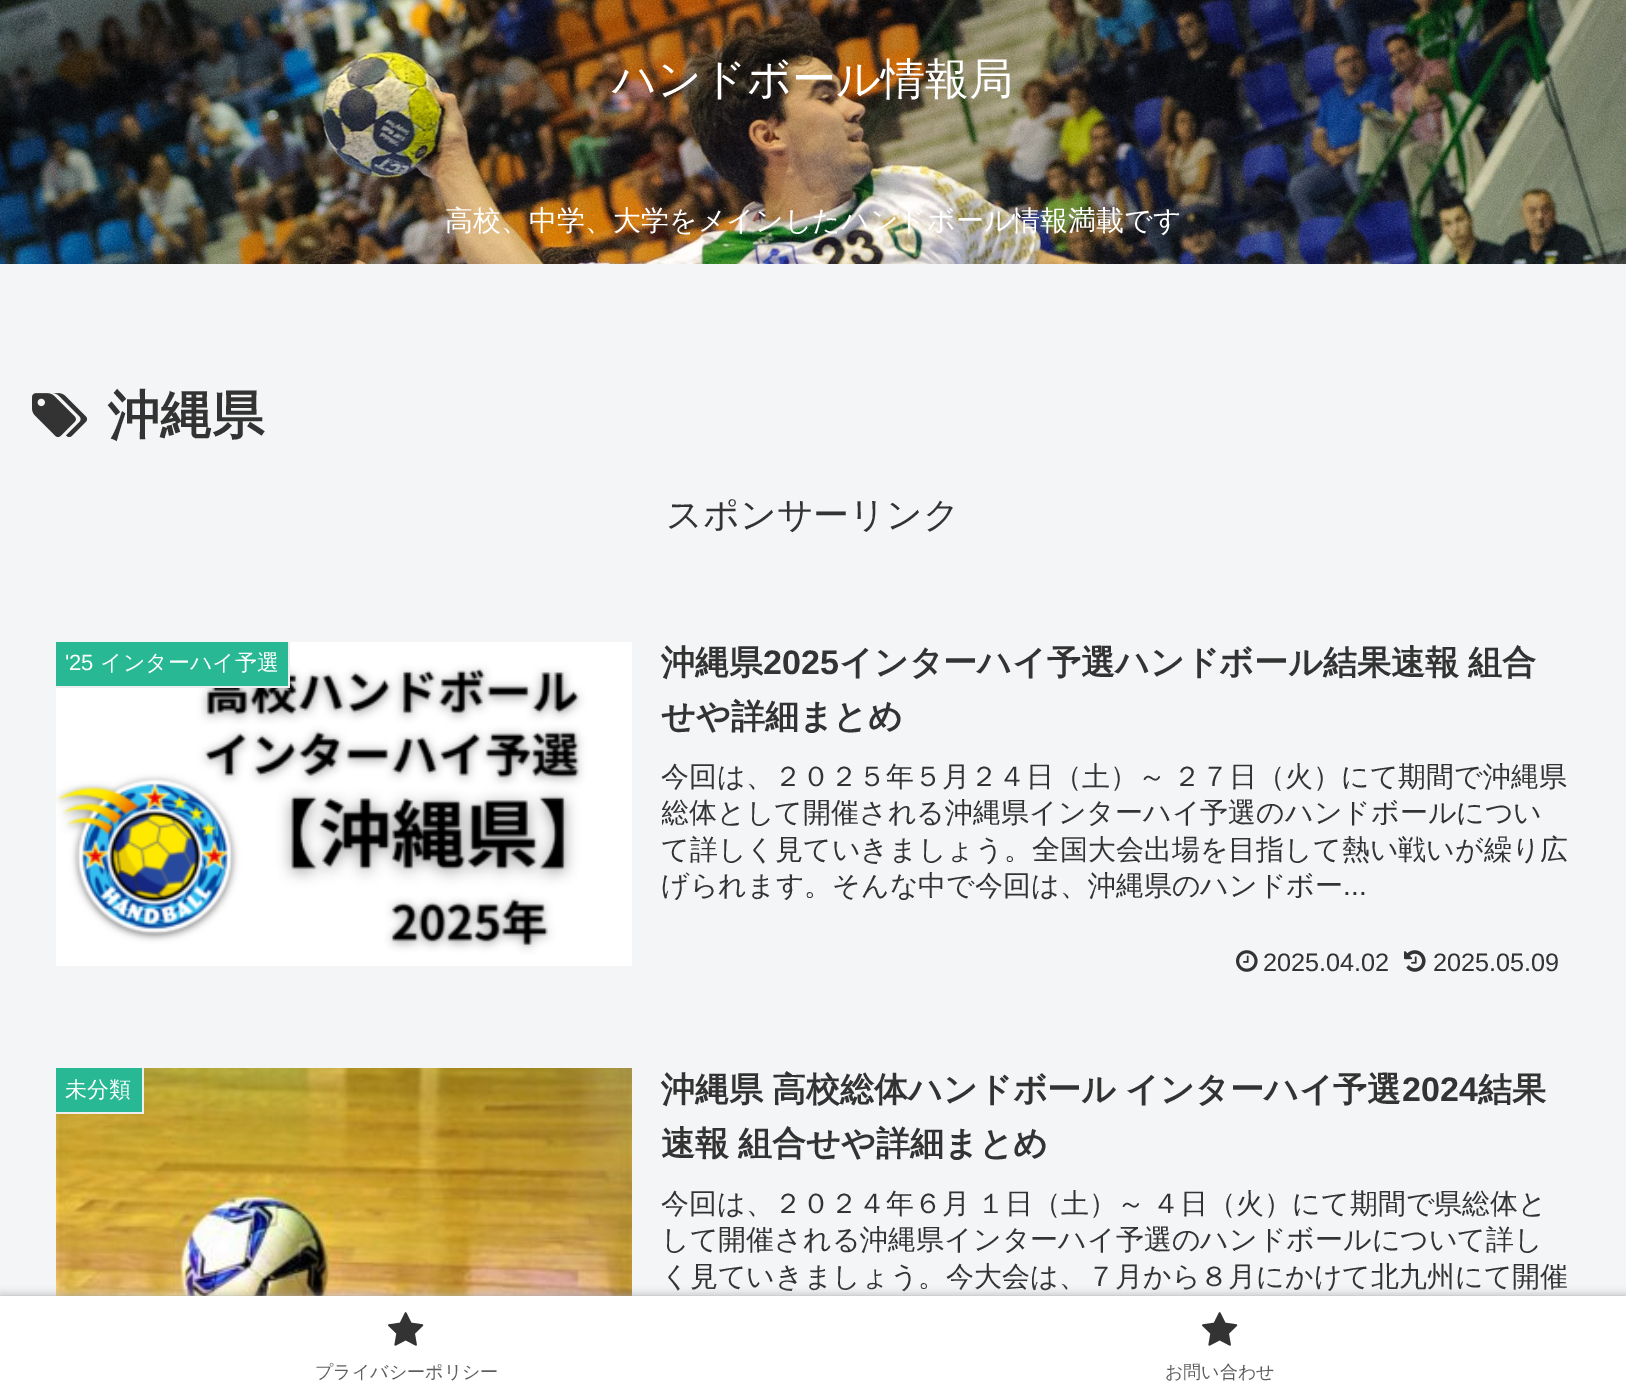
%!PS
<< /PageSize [1626 1395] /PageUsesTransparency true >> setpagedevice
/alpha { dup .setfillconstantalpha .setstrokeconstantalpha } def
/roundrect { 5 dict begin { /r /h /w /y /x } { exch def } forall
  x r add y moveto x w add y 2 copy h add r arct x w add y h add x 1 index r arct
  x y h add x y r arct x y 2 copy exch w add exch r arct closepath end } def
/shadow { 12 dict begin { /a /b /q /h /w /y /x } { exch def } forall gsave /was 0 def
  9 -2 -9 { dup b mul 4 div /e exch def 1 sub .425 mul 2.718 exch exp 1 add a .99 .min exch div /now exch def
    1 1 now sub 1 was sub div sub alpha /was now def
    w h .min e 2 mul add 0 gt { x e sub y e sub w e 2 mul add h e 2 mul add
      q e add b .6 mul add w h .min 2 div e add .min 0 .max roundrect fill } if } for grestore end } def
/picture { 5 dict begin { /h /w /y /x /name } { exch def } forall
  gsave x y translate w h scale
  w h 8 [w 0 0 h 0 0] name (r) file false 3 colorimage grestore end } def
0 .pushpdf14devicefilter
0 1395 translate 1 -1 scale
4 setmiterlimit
0.957 0.961 0.969 setrgbcolor
0 0 1626 1395 rectfill
(img1.rgb) 0 0 1626 264 picture
/WenQuanYiZenHei-Medium [44 0 0 -44 0 0] selectfont
1 setgray
612 94 moveto (ハンドボール情報局) show
/WenQuanYiZenHei-Medium [28 0 0 -28 0 0] selectfont
445 230 moveto (高校、中学、大学をメインしたハンドボール情報満載です) show
(img2.rgb) 32 393 56 45 picture
/WenQuanYiZenHei-Bold [52 0 0 -52 0 0] selectfont
0.2 setgray
108 433 moveto (沖縄県) show
/WenQuanYiZenHei-Medium [36 0 0 -36 0 0] selectfont
666 527 moveto (スポンサーリンク) show
(img3.rgb) 56 642 576 324 picture
0.157 0.722 0.576 setrgbcolor
56 642 232 44 rectfill
0.933 setgray
288 642 2 46 rectfill
56 686 234 2 rectfill
/LiberationSans-Regular [22 0 0 -22 0 0] selectfont
1 setgray
65 670 moveto ('25) show
/WenQuanYiZenHei-Medium [22 0 0 -22 0 0] selectfont
100 670 moveto (インターハイ予選) show
/WenQuanYiZenHei-Bold [34 0 0 -34 0 0] selectfont
0.2 setgray
661 674 moveto (沖縄県) show
/LiberationSans-Bold [34 0 0 -34 0 0] selectfont
763 674 moveto (2025) show
/WenQuanYiZenHei-Bold [34 0 0 -34 0 0] selectfont
839 674 moveto -1 0 32 (インターハイ予選ハンドボール結果速報 組合) widthshow
661 728 moveto (せや詳細まとめ) show
/WenQuanYiZenHei-Medium [28 0 0 -28 0 0] selectfont
661 786 moveto -1 0 32 (今回は、２０２５年５月２４日（土）～ ２７日（火）にて期間で沖縄県) widthshow
gsave
662 758 908 146 rectclip
661 822 moveto (総体として開催される沖縄県インターハイ予選のハンドボールについ) show
grestore
661 859 moveto (て詳しく見ていきましょう。全国大会出場を目指して熱い戦いが繰り広) show
661 895 moveto (げられます。そんな中で今回は、沖縄県のハンドボー) show
/LiberationSans-Regular [28 0 0 -28 0 0] selectfont
1343 895 moveto (...) show
(img4.rgb) 1236 950 22 22 picture
/LiberationSans-Regular [25.25 0 0 -25.25 0 0] selectfont
1263 971 moveto (2025.04.02) show
(img5.rgb) 1404 950 22 22 picture
1433 971 moveto (2025.05.09) show
(img6.rgb) 56 1068 576 228 picture
0.157 0.722 0.576 setrgbcolor
56 1068 86 44 rectfill
0.933 setgray
142 1068 2 46 rectfill
56 1112 88 2 rectfill
/WenQuanYiZenHei-Medium [22 0 0 -22 0 0] selectfont
1 setgray
65 1097 moveto (未分類) show
/WenQuanYiZenHei-Bold [34 0 0 -34 0 0] selectfont
0.2 setgray
661 1101 moveto -1 0 32 (沖縄県 高校総体ハンドボール インターハイ予選) widthshow
/LiberationSans-Bold [34 0 0 -34 0 0] selectfont
1402 1101 moveto (2024) show
/WenQuanYiZenHei-Bold [34 0 0 -34 0 0] selectfont
1478 1101 moveto (結果) show
661 1155 moveto -1 0 32 (速報 組合せや詳細まとめ) widthshow
/WenQuanYiZenHei-Medium [28 0 0 -28 0 0] selectfont
661 1213 moveto -1 0 32 (今回は、２０２４年６月 １日（土）～ ４日（火）にて期間で県総体と) widthshow
661 1249 moveto (して開催される沖縄県インターハイ予選のハンドボールについて詳し) show
661 1286 moveto (く見ていきましょう。今大会は、７月から８月にかけて北九州にて開催) show
0.663 setgray
0 1296 1626 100 0 5 1 shadow
1 setgray
0 1296 1626 99 rectfill
(img7.rgb) 388 1312 36 34 picture
/WenQuanYiZenHei-Medium [18 0 0 -18 0 0] selectfont
0.361 setgray
315 1378 moveto (プライバシーポリシー) show
(img7.rgb) 1202 1312 36 34 picture
1165 1378 moveto (お問い合わせ) show
.poppdf14devicefilter showpage
